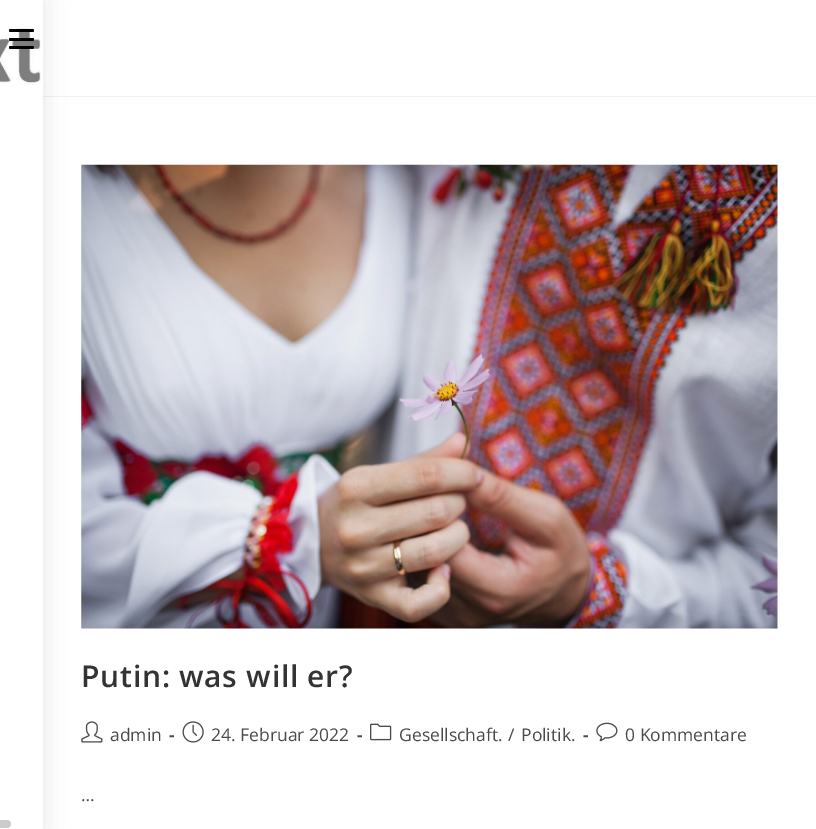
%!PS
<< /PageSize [816 829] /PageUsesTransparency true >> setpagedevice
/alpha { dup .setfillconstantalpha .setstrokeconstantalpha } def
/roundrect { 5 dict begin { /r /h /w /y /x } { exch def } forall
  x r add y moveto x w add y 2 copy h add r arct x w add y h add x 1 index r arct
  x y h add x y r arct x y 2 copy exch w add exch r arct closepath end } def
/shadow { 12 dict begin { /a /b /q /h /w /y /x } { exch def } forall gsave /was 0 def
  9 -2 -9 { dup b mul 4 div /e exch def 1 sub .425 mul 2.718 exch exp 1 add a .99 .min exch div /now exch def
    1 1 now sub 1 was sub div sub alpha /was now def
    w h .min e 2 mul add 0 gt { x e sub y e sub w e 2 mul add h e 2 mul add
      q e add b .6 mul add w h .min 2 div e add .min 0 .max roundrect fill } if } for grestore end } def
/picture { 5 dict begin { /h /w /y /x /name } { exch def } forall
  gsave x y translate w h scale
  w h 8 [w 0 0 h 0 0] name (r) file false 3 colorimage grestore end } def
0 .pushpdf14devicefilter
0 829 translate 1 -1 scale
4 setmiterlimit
1 setgray
0 0 816 829 rectfill
0.945 setgray
43 96 773 1 rectfill
(img2.rgb) 81 164 697 465 picture
(img3.rgb) 81 721 22 22 picture
0 setgray
-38 0 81 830 0 12.5 0.1 shadow
1 setgray
0 0 43 829 rectfill
(img1.rgb) 0 28 41 57 picture
0 setgray
9 38 25 3 1.5 roundrect fill
9 29 25 3 1.5 roundrect fill
9 46 25 3 1.5 roundrect fill
0.8 setgray
-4 820 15 8 4 roundrect fill
/OpenSans-SemiBold [30 0 0 -30 0 0] selectfont
0.2 setgray
81 687 moveto 0.75 0 (Putin: was will er?) ashow
/OpenSans-Regular [17.5 0 0 -17.5 0 0] selectfont
0.29 setgray
110 741 moveto (admin) show
/OpenSans-Bold [17.5 0 0 -17.5 0 0] selectfont
169 741 moveto (-) show
(img4.rgb) 182 721 22 22 picture
/OpenSans-Regular [17.5 0 0 -17.5 0 0] selectfont
211 741 moveto (24. Februar 2022) show
/OpenSans-Bold [17.5 0 0 -17.5 0 0] selectfont
357 741 moveto (-) show
(img5.rgb) 370 723 22 18 picture
/OpenSans-Regular [17.5 0 0 -17.5 0 0] selectfont
399 741 moveto (Gesellschaft.) show
508 741 moveto (/) show
521 741 moveto (Politik.) show
/OpenSans-Bold [17.5 0 0 -17.5 0 0] selectfont
583 741 moveto (-) show
(img6.rgb) 596 722 22 20 picture
/OpenSans-Regular [17.5 0 0 -17.5 0 0] selectfont
625 741 moveto (0 Kommentare) show
81 801 moveto (…) show
.poppdf14devicefilter showpage
